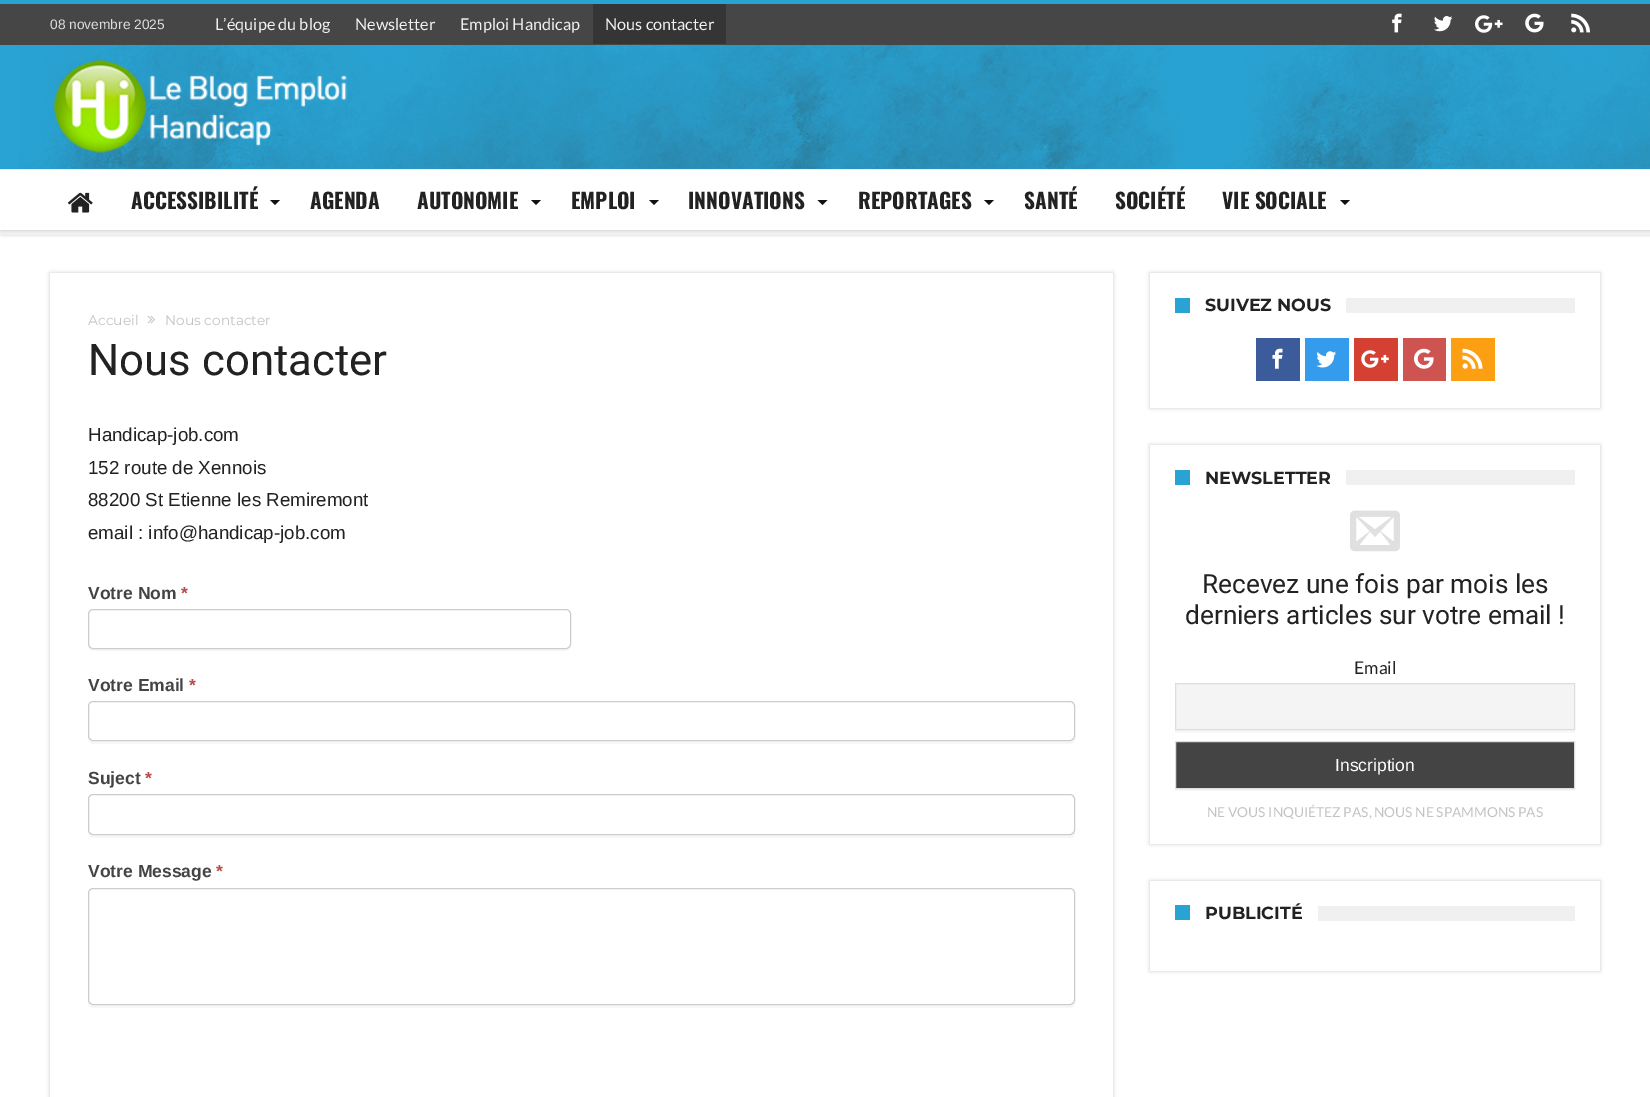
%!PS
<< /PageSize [1650 1097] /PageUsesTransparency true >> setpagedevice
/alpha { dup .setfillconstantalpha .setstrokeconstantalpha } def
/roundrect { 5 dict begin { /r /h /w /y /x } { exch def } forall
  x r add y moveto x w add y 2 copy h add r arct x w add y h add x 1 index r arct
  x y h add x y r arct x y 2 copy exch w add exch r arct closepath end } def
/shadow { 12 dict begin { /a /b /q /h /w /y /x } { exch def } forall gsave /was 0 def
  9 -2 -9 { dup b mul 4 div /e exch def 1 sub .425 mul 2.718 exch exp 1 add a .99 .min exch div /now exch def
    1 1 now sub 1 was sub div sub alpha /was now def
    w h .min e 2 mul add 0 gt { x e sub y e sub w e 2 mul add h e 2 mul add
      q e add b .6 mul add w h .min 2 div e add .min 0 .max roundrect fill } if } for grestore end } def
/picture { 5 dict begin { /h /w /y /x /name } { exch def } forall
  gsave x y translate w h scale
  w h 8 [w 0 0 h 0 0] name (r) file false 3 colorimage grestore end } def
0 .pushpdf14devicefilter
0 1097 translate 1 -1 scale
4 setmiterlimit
1 setgray
0 0 1650 1097 rectfill
0.157 0.639 0.831 setrgbcolor
0 0 1650 4 rectfill
0.275 setgray
0 4 1650 41 rectfill
/LiberationSans-Regular [13.75 0 0 -13.75 0 0] selectfont
0.867 setgray
50 29 moveto (08 novembre 2025) show
/Lato-Regular [16.25 0 0 -16.25 0 0] selectfont
0.941 setgray
215 30 moveto (L’équipe du blog) show
355 30 moveto (Newsletter) show
460 30 moveto (Emploi Handicap) show
0.208 setgray
593 4 133 40 rectfill
0.941 setgray
605 30 moveto (Nous contacter) show
(img1.rgb) 1392 13 10 20 picture
(img2.rgb) 1434 16 19 16 picture
(img3.rgb) 1475 15 28 18 picture
(img4.rgb) 1525 13 19 20 picture
(img5.rgb) 1571 13 19 20 picture
0.157 0.639 0.831 setrgbcolor
0 45 1650 124 rectfill
(img6.rgb) 18 45 1632 124 picture
(img7.rgb) 53 59 294 94 picture
0 setgray
1 170 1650 66 0 1 0.11 shadow
0.941 setgray
0 169 1650 66 rectfill
0 setgray
1 171 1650 60 0 1 0.11 shadow
1 setgray
0 170 1650 60 rectfill
(img8.rgb) 67 192 26 21 picture
/Oswald-Bold [21.25 0 0 -21.25 0 0] selectfont
0.133 setgray
131 209 moveto (ACCESSIBILITÉ) show
0.067 setgray
newpath 270 200 moveto 280 200 lineto 275 205 lineto closepath fill
0.133 setgray
310 209 moveto (AGENDA) show
417 209 moveto (AUTONOMIE) show
0.067 setgray
newpath 531 200 moveto 541 200 lineto 536 205 lineto closepath fill
0.133 setgray
571 209 moveto (EMPLOI) show
0.067 setgray
newpath 649 200 moveto 659 200 lineto 654 205 lineto closepath fill
0.133 setgray
688 209 moveto (INNOVATIONS) show
0.067 setgray
newpath 817.5 200 moveto 827.5 200 lineto 822.5 205 lineto closepath fill
0.133 setgray
858 209 moveto (REPORTAGES) show
0.067 setgray
newpath 984 200 moveto 994 200 lineto 989 205 lineto closepath fill
0.133 setgray
1024 209 moveto (SANTÉ) show
1115 209 moveto (SOCIÉTÉ) show
1222 209 moveto (VIE SOCIALE) show
0.067 setgray
newpath 1340 200 moveto 1350 200 lineto 1345 205 lineto closepath fill
0 setgray
50 273 1063 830 0 2 0.21 shadow
1 setgray
50 273 1063 824 rectfill
/Montserrat-Regular [13.75 0 0 -13.75 0 0] selectfont
0.765 setgray
88 325 moveto (Accueil) show
(img9.rgb) 147 315 8 9 picture
165 325 moveto (Nous contacter) show
/Roboto-Regular [43.75 0 0 -43.75 0 0] selectfont
0.133 setgray
88 375 moveto (Nous contacter) show
/LiberationSans-Regular [18.75 0 0 -18.75 0 0] selectfont
88 441 moveto (Handicap-job.com) show
88 474 moveto (152 route de Xennois) show
88 506 moveto (88200 St Etienne les Remiremont) show
88 539 moveto (email : info@handicap-job.com) show
/LiberationSans-Bold [17.5 0 0 -17.5 0 0] selectfont
0.267 setgray
88 599 moveto (Votre Nom) show
0.725 0.29 0.282 setrgbcolor
181 599 moveto (*) show
0.969 setgray
newpath 88 646 moveto 88 649 90 651 93 651 curveto 566 651 lineto 569 651 571 648 571 645 curveto 570 647 568 649 566 649 curveto 92 649 lineto 91 649 89 648 88 646 curveto closepath fill
1 setgray
88.5 609.5 482 39 4.5 roundrect gsave fill grestore
0.8 setgray
stroke
0.267 setgray
88 691 moveto (Votre Email) show
0.725 0.29 0.282 setrgbcolor
189 691 moveto (*) show
0.969 setgray
newpath 88 738 moveto 88 741 90 744 93 744 curveto 1070 744 lineto 1075 744 1075 740 1075 736 curveto 1075 739 1073 741 1070 741 curveto 92 741 lineto 91 741 89 740 88 738 curveto closepath fill
0.8 setgray
88.5 701.5 986 39 4.5 roundrect stroke
0.267 setgray
88 784 moveto (Suject) show
0.725 0.29 0.282 setrgbcolor
145 784 moveto (*) show
0.969 setgray
newpath 88 832 moveto 88 833 lineto 88 836 90 838 93 838 curveto 1070 838 lineto 1073 838 1075 836 1075 833 curveto 1075 830 lineto 1075 833 1073 835 1070 835 curveto 92 835 lineto 91 835 89 834 88 832 curveto closepath fill
0.8 setgray
88.5 794.5 986 40 4.5 roundrect stroke
0.267 setgray
88 877 moveto (Votre Message) show
0.725 0.29 0.282 setrgbcolor
216 877 moveto (*) show
0.969 setgray
newpath 88 1002 moveto 88 1003 lineto 88 1006 90 1008 93 1008 curveto 1070 1008 lineto 1073 1008 1075 1006 1075 1003 curveto 1075 1000 lineto 1075 1003 1073 1005 1070 1005 curveto 92 1005 lineto 91 1005 89 1004 88 1002 curveto closepath fill
0.8 setgray
88.5 888.5 986 116 4.5 roundrect stroke
0 setgray
1150 273 450 135 0 2 0.21 shadow
1 setgray
1150 273 450 135 rectfill
0.941 setgray
1346 298 229 15 rectfill
0.157 0.639 0.831 setrgbcolor
1175 298 15 15 rectfill
/Montserrat-Bold [17.5 0 0 -17.5 0 0] selectfont
0.133 setgray
1205 311 moveto (SUIVEZ NOUS) show
0.235 0.357 0.608 setrgbcolor
1256 338 44 43 rectfill
(img10.rgb) 1272 348 11 21 picture
0.208 0.608 0.929 setrgbcolor
1305 338 44 43 rectfill
(img11.rgb) 1316 351 21 17 picture
0.831 0.255 0.196 setrgbcolor
1354 338 44 43 rectfill
(img12.rgb) 1361 350 28 18 picture
0.808 0.329 0.322 setrgbcolor
1403 338 43 43 rectfill
(img13.rgb) 1413 348 21 21 picture
0.992 0.624 0.075 setrgbcolor
1451 338 44 43 rectfill
(img14.rgb) 1462 348 21 21 picture
0 setgray
1150 445 450 399 0 2 0.21 shadow
1 setgray
1150 445 450 399 rectfill
0.941 setgray
1346 470 229 15 rectfill
0.157 0.639 0.831 setrgbcolor
1175 470 15 15 rectfill
0.133 setgray
1205 484 moveto (NEWSLETTER) show
(img15.rgb) 1350 510 50 42 picture
/Roboto-Regular [26.25 0 0 -26.25 0 0] selectfont
1202 593 moveto (Recevez une fois par mois les) show
1185 624 moveto (derniers articles sur votre email !) show
/Lato-Regular [17.5 0 0 -17.5 0 0] selectfont
1354 674 moveto (Email) show
0.969 setgray
1175 730 400 3 rectfill
0.957 setgray
newpath 1175.5 683.5 moveto 1574.5 683.5 lineto 1574.5 729.5 lineto 1175.5 729.5 lineto closepath gsave fill grestore
0.867 setgray
stroke
0.969 setgray
1175 789 400 2 rectfill
0.267 setgray
newpath 1175.5 741.5 moveto 1574.5 741.5 lineto 1574.5 788.5 lineto 1175.5 788.5 lineto closepath gsave fill grestore
0.867 setgray
stroke
/LiberationSans-Regular [17.5 0 0 -17.5 0 0] selectfont
1 setgray
1335 771 moveto (Inscription) show
/Lato-Regular [13.75 0 0 -13.75 0 0] selectfont
0.765 setgray
1207 817 moveto (NE VOUS INQUIÉTEZ PAS, NOUS NE SPAMMONS PAS) show
0 setgray
1150 881 450 90 0 2 0.21 shadow
1 setgray
1150 881 450 90 rectfill
0.941 setgray
1318 906 257 15 rectfill
0.157 0.639 0.831 setrgbcolor
1175 905 15 15 rectfill
/Montserrat-Bold [17.5 0 0 -17.5 0 0] selectfont
0.133 setgray
1205 919 moveto (PUBLICITÉ) show
.poppdf14devicefilter showpage
